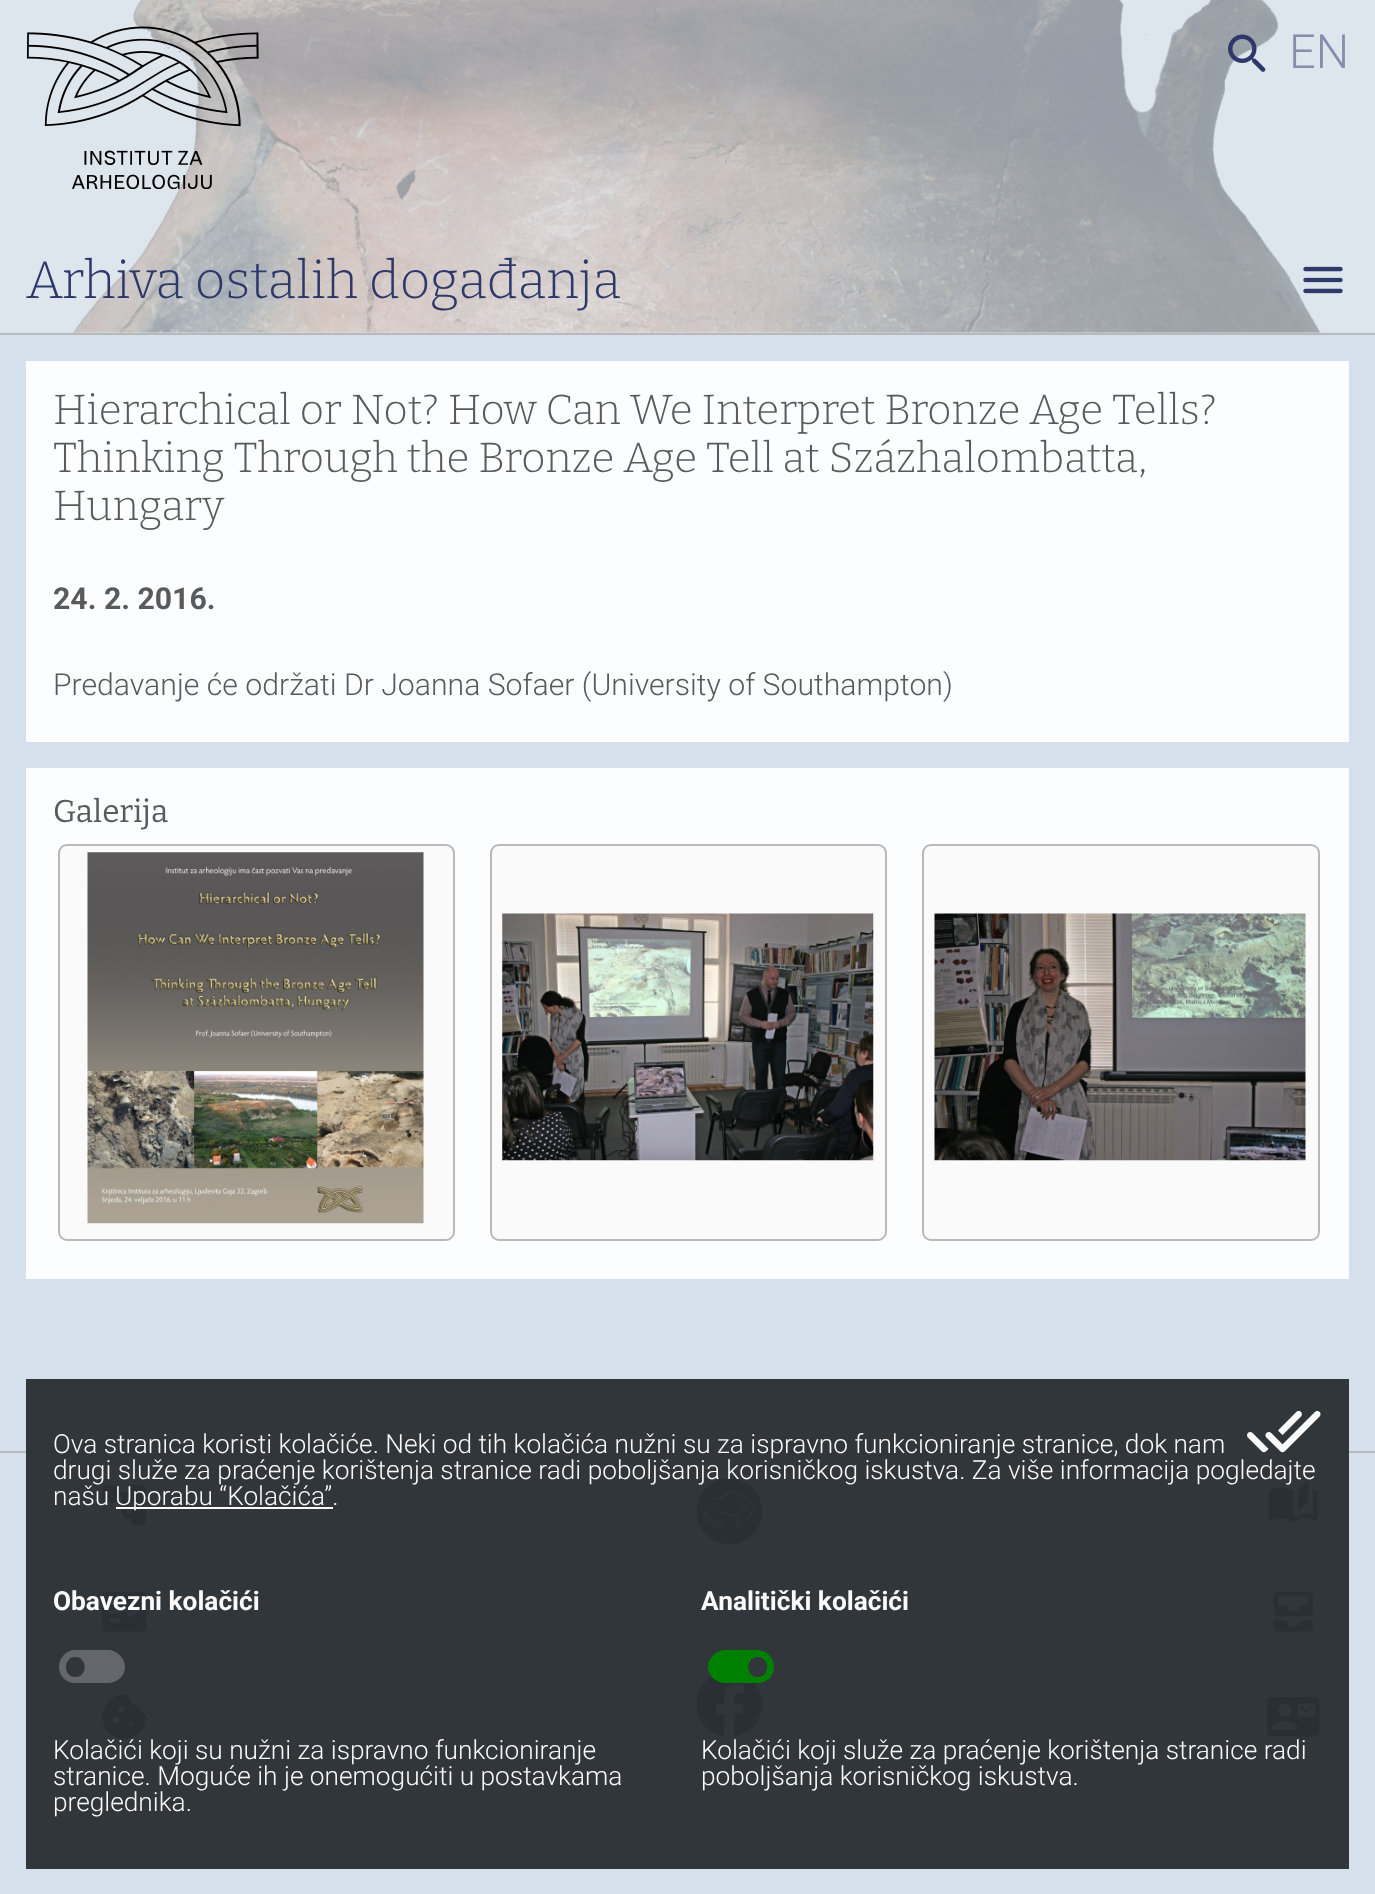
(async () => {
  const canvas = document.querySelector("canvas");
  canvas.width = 1375;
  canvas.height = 1894;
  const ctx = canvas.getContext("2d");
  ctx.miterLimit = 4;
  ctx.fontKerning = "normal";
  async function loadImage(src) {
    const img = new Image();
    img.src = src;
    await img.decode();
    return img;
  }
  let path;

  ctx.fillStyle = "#d4e0ec";
  ctx.fillRect(0, 0, 1375, 1894);
  ctx.fillStyle = "#31363b";
  ctx.fillRect(26, 1379, 1323, 490);
  ctx.drawImage(await loadImage("img/1.png"), 0, 0, 1375, 333);
  ctx.drawImage(await loadImage("img/2.png"), 26, 26, 233, 163);
  ctx.drawImage(await loadImage("img/3.png"), 1228, 34, 38, 38);
  ctx.drawImage(await loadImage("img/4.png"), 1303, 266, 40, 28);
  for (const [x, y, w, h, color] of [
    [0, 333, 1375, 2, "#b9b9b9"],
    [0, 1451, 1375, 2, "#b9b9b9"],
    [26, 1451, 1323, 2, "#2f3439"],
    [26, 361, 1323, 381, "#fbfdff"],
    [26, 768, 1323, 511, "#fbfdff"],
  ]) {
    ctx.fillStyle = color;
    ctx.fillRect(x, y, w, h);
  }
  ctx.fillStyle = "#fafafa";
  ctx.beginPath();
  ctx.roundRect(59, 845, 395, 395, 8);
  ctx.fill();
  ctx.strokeStyle = "#b9b9b9";
  ctx.lineWidth = 2;
  ctx.stroke();
  ctx.drawImage(await loadImage("img/5.png"), 87, 852, 337, 372);
  ctx.beginPath();
  ctx.roundRect(491, 845, 395, 395, 8);
  ctx.fill();
  ctx.stroke();
  ctx.drawImage(await loadImage("img/6.png"), 502, 913, 372, 248);
  ctx.beginPath();
  ctx.roundRect(923, 845, 396, 395, 8);
  ctx.fill();
  ctx.stroke();
  ctx.drawImage(await loadImage("img/7.png"), 934, 913, 372, 248);
  ctx.drawImage(await loadImage("img/8.png"), 1247, 1410, 74, 43);
  ctx.drawImage(await loadImage("img/9.png"), 102, 1485, 45, 40);
  ctx.fillRect(116, 1507, 217, 2);
  ctx.fillStyle = "rgba(250, 250, 250, 0.25)";
  path = new Path2D("M108 1650H75C66 1650 59 1658 59 1667C59 1676 66 1683 75 1683H108C117 1683 125 1676 125 1667C125 1658 117 1650 108 1650ZM75 1677C63 1677 63 1657 75 1657C88 1657 88 1677 75 1677Z");
  ctx.fill(path);
  ctx.drawImage(await loadImage("img/13.png"), 697, 1676, 66, 61);
  ctx.fillStyle = "#008000";
  path = new Path2D("M758 1650H725C716 1650 708 1658 708 1667C708 1676 716 1683 725 1683H758C767 1683 774 1676 774 1667C774 1658 767 1650 758 1650ZM758 1677C745 1677 745 1657 758 1657C770 1657 770 1677 758 1677Z");
  ctx.fill(path);
  ctx.drawImage(await loadImage("img/10.png"), 102, 1592, 45, 40);
  ctx.drawImage(await loadImage("img/11.png"), 102, 1694, 45, 45);
  ctx.drawImage(await loadImage("img/12.png"), 697, 1479, 66, 66);
  ctx.drawImage(await loadImage("img/14.png"), 1269, 1481, 49, 42);
  ctx.drawImage(await loadImage("img/15.png"), 1273, 1592, 40, 40);
  ctx.drawImage(await loadImage("img/16.png"), 1267, 1697, 53, 40);
  ctx.font = "300 47px Roboto";
  ctx.fillStyle = "#858fac";
  ctx.fillText("EN", 1289, 68);
  ctx.font = "300 52.5px Bitter";
  ctx.fillStyle = "#2e386a";
  ctx.fillText("Arhiva ostalih događanja", 26, 298);
  ctx.font = "300 42px Bitter";
  ctx.fillStyle = "#5a5a5a";
  for (const [text, x, y] of [
    ["Hierarchical or Not? How Can We Interpret Bronze Age Tells?", 53, 424],
    ["Thinking Through the Bronze Age Tell at Százhalombatta,", 53, 472],
    ["Hungary", 53, 520],
  ]) {
    ctx.fillText(text, x, y);
  }
  ctx.font = "bold 30.2px Roboto";
  ctx.fillText("24. 2. 2016.", 53, 609);
  ctx.font = "300 30.2px Roboto";
  ctx.fillText("Predavanje će održati Dr Joanna Sofaer (University of Southampton)", 53, 695);
  ctx.font = "31.5px Bitter";
  ctx.fillText("Galerija", 53, 822);
  ctx.font = "300 26.25px Roboto";
  ctx.fillStyle = "#fafafa";
  for (const [text, x, y] of [
    ["Ova stranica koristi kolačiće. Neki od tih kolačića nužni su za ispravno funkcioniranje stranice, dok nam", 53, 1453],
    ["drugi služe za praćenje korištenja stranice radi poboljšanja korisničkog iskustva. Za više informacija pogledajte", 53, 1479],
    ["našu", 53, 1505],
    ["Uporabu “Kolačića”.", 115, 1505],
  ]) {
    ctx.fillText(text, x, y);
  }
  ctx.font = "bold 26.25px Roboto";
  ctx.fillText("Obavezni kolačići", 53, 1610);
  ctx.font = "300 26.25px Roboto";
  for (const [text, x, y] of [
    ["Kolačići koji su nužni za ispravno funkcioniranje", 53, 1759],
    ["stranice. Moguće ih je onemogućiti u postavkama", 53, 1785],
    ["preglednika.", 53, 1811],
  ]) {
    ctx.fillText(text, x, y);
  }
  ctx.font = "bold 26.25px Roboto";
  ctx.fillText("Analitički kolačići", 701, 1610);
  ctx.font = "300 26.25px Roboto";
  ctx.fillText("Kolačići koji služe za praćenje korištenja stranice radi", 701, 1759);
  ctx.fillText("poboljšanja korisničkog iskustva.", 701, 1785);
})();
